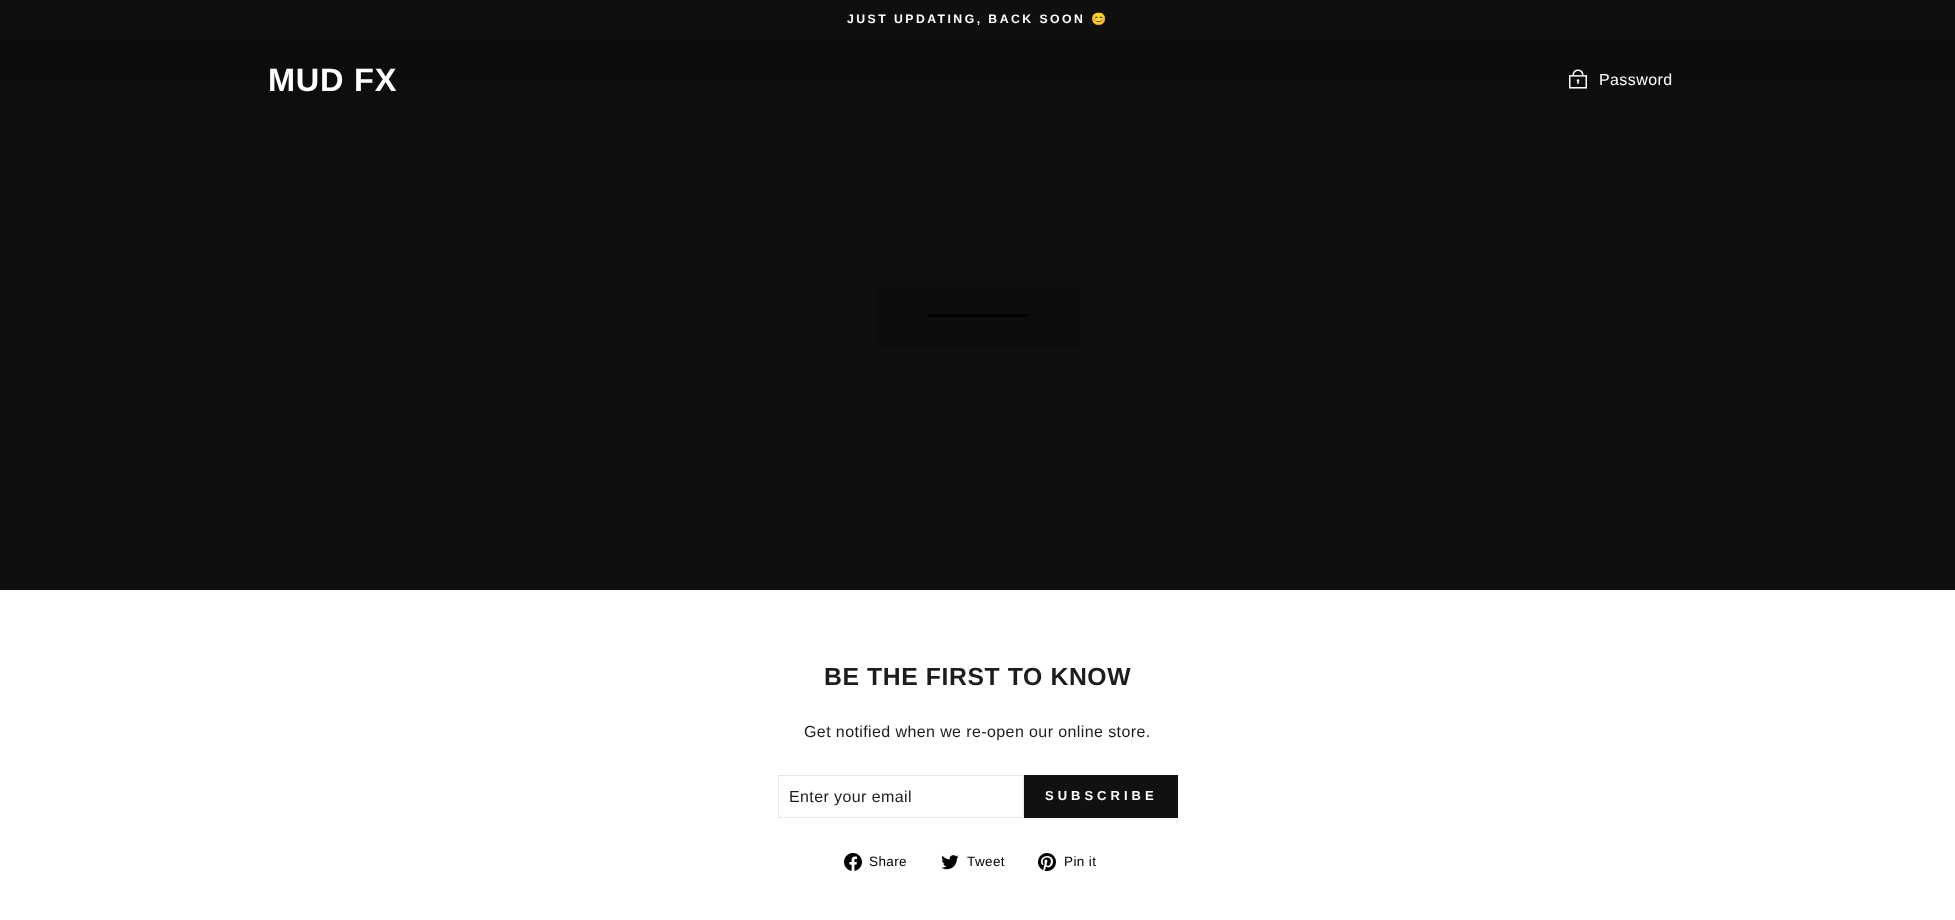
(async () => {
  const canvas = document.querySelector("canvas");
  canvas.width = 1955;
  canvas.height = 920;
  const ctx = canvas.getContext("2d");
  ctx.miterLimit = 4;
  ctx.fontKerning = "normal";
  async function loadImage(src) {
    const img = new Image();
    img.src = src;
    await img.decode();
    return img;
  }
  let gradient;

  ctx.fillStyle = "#ffffff";
  ctx.fillRect(0, 0, 1955, 920);
  ctx.fillStyle = "#0f0f0f";
  ctx.fillRect(0, 0, 1955, 40);
  gradient = ctx.createLinearGradient(978, 40, 978, 120);
  gradient.addColorStop(0, "#0b0b0b");
  gradient.addColorStop(1, "#0f0f0f");
  ctx.fillStyle = gradient;
  ctx.fillRect(0, 40, 1955, 80);
  ctx.drawImage(await loadImage("img/1.png"), 1569, 69, 18, 20);
  ctx.fillStyle = "#0f0f0f";
  ctx.fillRect(0, 120, 1955, 470);
  ctx.fillStyle = "#000000";
  ctx.fillRect(928, 314, 100, 3);
  gradient = ctx.createRadialGradient(978, 1083.66, 0, 978, 1083.66, 629);
  gradient.addColorStop(0, "rgba(0, 0, 0, 0.24)");
  gradient.addColorStop(0.6, "rgba(0, 0, 0, 0)");
  ctx.fillStyle = gradient;
  ctx.beginPath();
  ctx.rect(875, 287, 206, 60);
  ctx.save();
  ctx.clip();
  ctx.scale(1, 184 / 629);
  ctx.fillRect(0, 0, 1955, 3145);
  ctx.restore();
  ctx.strokeStyle = "#e8e8e1";
  ctx.strokeRect(778.5, 775.5, 245, 42);
  ctx.fillStyle = "#111111";
  ctx.fillRect(1024, 775, 154, 43);
  ctx.drawImage(await loadImage("img/2.png"), 844, 853, 18, 18);
  ctx.drawImage(await loadImage("img/3.png"), 941, 855, 18, 15);
  ctx.drawImage(await loadImage("img/4.png"), 1038, 853, 18, 18);
  ctx.letterSpacing = "2.45px";
  ctx.font = "bold 12.25px Arimo";
  ctx.fillStyle = "#ffffff";
  ctx.fillText("JUST UPDATING, BACK SOON", 847, 23);
  ctx.font = "bold 12.25px Noto Color Emoji";
  ctx.fillText("😊", 1091, 23);
  ctx.letterSpacing = "0.75px";
  ctx.font = "bold 32.5px Arimo";
  ctx.fillText("MUD FX", 268, 91);
  ctx.letterSpacing = "0.4px";
  ctx.font = "16px Arimo";
  ctx.fillText("Password", 1599, 85);
  ctx.letterSpacing = "0.6px";
  ctx.font = "bold 24.75px Arimo";
  ctx.fillStyle = "#1c1d1d";
  ctx.fillText("BE THE FIRST TO KNOW", 824, 685);
  ctx.letterSpacing = "0.4px";
  ctx.font = "16px Arimo";
  ctx.fillText("Get notified when we re-open our online store.", 804, 737);
  ctx.fillText("Enter your email", 789, 802);
  ctx.letterSpacing = "4px";
  ctx.font = "bold 13px Arimo";
  ctx.fillStyle = "#ffffff";
  ctx.fillText("SUBSCRIBE", 1045, 800);
  ctx.letterSpacing = "0.4px";
  ctx.font = "13.5px Arimo";
  ctx.fillStyle = "#000000";
  for (const [text, x, y] of [
    ["Share", 869, 866],
    ["Tweet", 967, 866],
    ["Pin it", 1064, 866],
  ]) {
    ctx.fillText(text, x, y);
  }
})();
